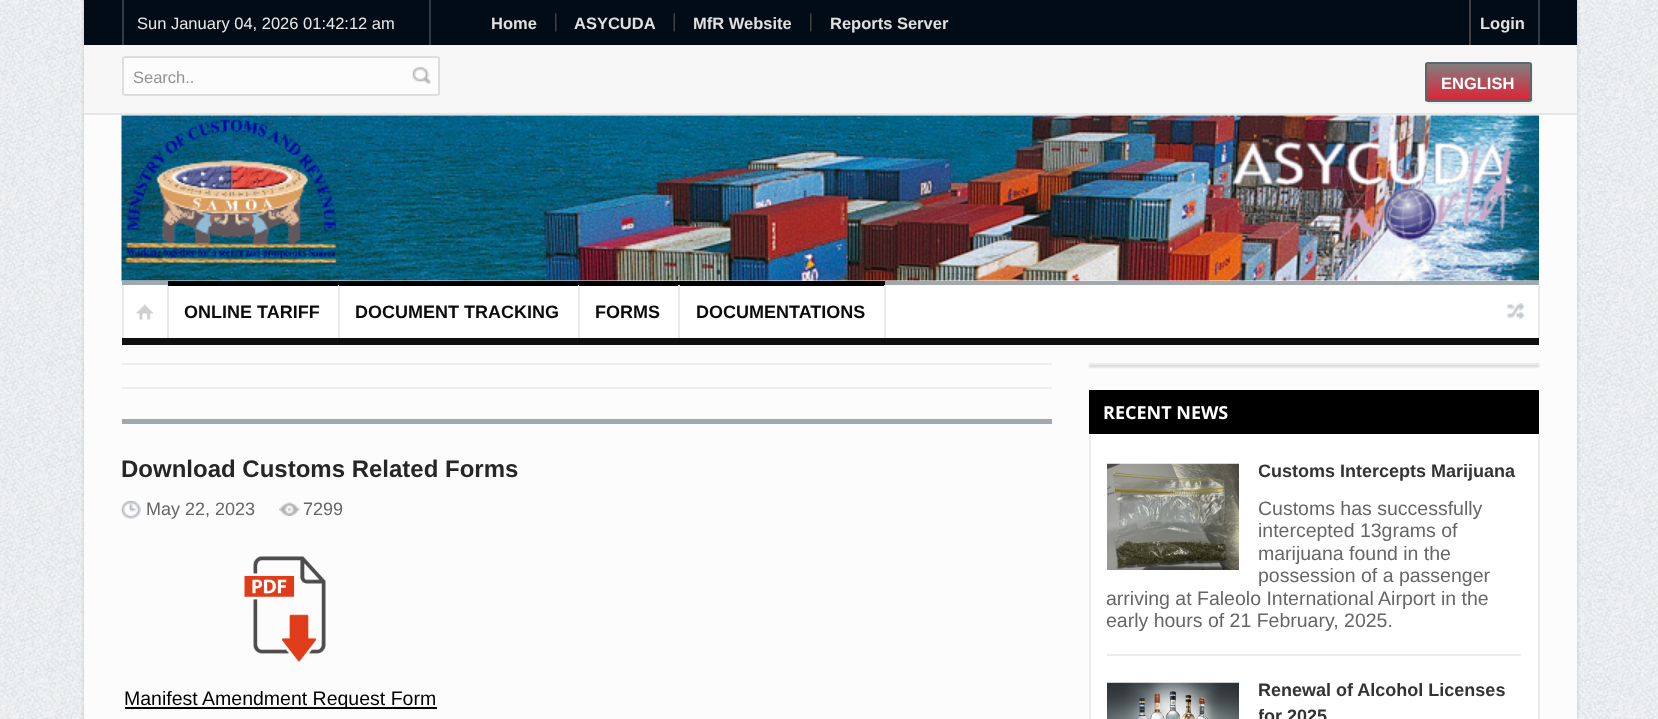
(async () => {
  const canvas = document.querySelector("canvas");
  canvas.width = 1658;
  canvas.height = 719;
  const ctx = canvas.getContext("2d");
  ctx.miterLimit = 4;
  ctx.fontKerning = "normal";
  async function loadImage(src) {
    const img = new Image();
    img.src = src;
    await img.decode();
    return img;
  }
  let gradient, path;

  ctx.fillStyle = "#ffffff";
  ctx.fillRect(0, 0, 1658, 719);
  ctx.drawImage(await loadImage("img/1.png"), 0, 0, 1658, 719);
  ctx.fillStyle = "rgba(0, 0, 0, 0.1)";
  ctx.filter = "blur(1.5px)";
  ctx.beginPath();
  ctx.rect(83, -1, 1495, 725);
  ctx.fill();
  ctx.filter = "none";
  for (const [x, y, w, h, color] of [
    [84, 116, 1493, 603, "#fcfcfc"],
    [84, 0, 1493, 45, "#010c16"],
    [1538, 0, 2, 45, "#323b44"],
    [122, 0, 2, 45, "#323b44"],
    [429, 0, 2, 45, "#323b44"],
  ]) {
    ctx.fillStyle = color;
    ctx.fillRect(x, y, w, h);
  }
  ctx.drawImage(await loadImage("img/2.png"), 555, 13, 2, 19);
  ctx.drawImage(await loadImage("img/3.png"), 673, 13, 2, 19);
  ctx.drawImage(await loadImage("img/2.png"), 810, 13, 2, 19);
  for (const [x, y, w, h, color] of [
    [1469, 0, 2, 45, "#404040"],
    [84, 45, 1493, 68, "#f7f7f7"],
    [84, 115, 1493, 1, "#ffffff"],
    [84, 113, 1493, 2, "#e6e6e6"],
  ]) {
    ctx.fillStyle = color;
    ctx.fillRect(x, y, w, h);
  }
  ctx.fillStyle = "#fcfcfc";
  ctx.beginPath();
  ctx.roundRect(123, 57, 316, 38, 2);
  ctx.fill();
  ctx.strokeStyle = "#dedede";
  ctx.lineWidth = 2;
  ctx.stroke();
  ctx.drawImage(await loadImage("img/4.png"), 412, 66, 19, 18);
  ctx.fillStyle = "#ebebeb";
  path = new Path2D("M1427 102C1428 103 1429 104 1430 104H1530C1532 104 1533 103 1533 101V66C1533 65 1532 64 1531 63L1532 88C1532 106 1534 102 1512 102Z");
  ctx.fill(path);
  ctx.save();
  ctx.beginPath();
  ctx.roundRect(1425, 62, 107, 40, 3);
  ctx.clip();
  gradient = ctx.createLinearGradient(1478, 63, 1478, 101);
  gradient.addColorStop(0, "#808080");
  gradient.addColorStop(1, "#de2234");
  ctx.fillStyle = gradient;
  ctx.fillRect(1425, 63, 107, 38);
  ctx.restore();
  ctx.beginPath();
  ctx.roundRect(1426, 63, 105, 38, 2);
  ctx.strokeStyle = "#5e656b";
  ctx.stroke();
  ctx.drawImage(await loadImage("img/5.png"), 121, 115, 1418, 166);
  ctx.drawImage(await loadImage("img/6.png"), 125, 119, 212, 144);
  ctx.drawImage(await loadImage("img/7.png"), 1231, 141, 282, 100);
  for (const [x, y, w, h, color] of [
    [122, 281, 1417, 4, "#a2a9ae"],
    [122, 338, 1417, 7, "#101010"],
    [124, 285, 1414, 53, "#ffffff"],
    [1538, 285, 2, 53, "#e9e9e9"],
  ]) {
    ctx.fillStyle = color;
    ctx.fillRect(x, y, w, h);
  }
  ctx.drawImage(await loadImage("img/8.png"), 136, 304, 17, 16);
  for (const [x, y, w, h, color] of [
    [167, 285, 2, 53, "#e9e9e9"],
    [122, 285, 2, 53, "#e9e9e9"],
    [168, 281, 171, 5, "#000000"],
    [338, 285, 2, 53, "#e9e9e9"],
    [339, 281, 240, 5, "#000000"],
    [578, 285, 2, 53, "#e9e9e9"],
    [579, 281, 306, 5, "#000000"],
    [678, 285, 2, 53, "#e9e9e9"],
    [884, 285, 2, 53, "#e9e9e9"],
  ]) {
    ctx.fillStyle = color;
    ctx.fillRect(x, y, w, h);
  }
  ctx.drawImage(await loadImage("img/9.png"), 1507, 303, 17, 17);
  for (const [x, y, w, h, color] of [
    [122, 363, 930, 2, "#ededed"],
    [122, 387, 930, 2, "#ededed"],
    [122, 419, 930, 5, "#a2a9ae"],
  ]) {
    ctx.fillStyle = color;
    ctx.fillRect(x, y, w, h);
  }
  ctx.drawImage(await loadImage("img/10.png"), 121, 501, 20, 18);
  ctx.drawImage(await loadImage("img/11.png"), 279, 502, 21, 14);
  ctx.drawImage(await loadImage("img/12.png"), 244, 556, 82, 106);
  ctx.fillStyle = "#000000";
  ctx.fillRect(125, 707, 312, 2);
  ctx.fillStyle = "rgba(0, 0, 0, 0.2)";
  ctx.filter = "blur(1px)";
  ctx.beginPath();
  ctx.rect(1089, 365, 450, 2);
  ctx.fill();
  ctx.filter = "none";
  for (const [x, y, w, h, color] of [
    [1089, 363, 450, 2, "#ebebeb"],
    [1089, 390, 450, 44, "#000000"],
    [1091, 434, 447, 285, "#ffffff"],
    [1538, 434, 2, 285, "#ebebeb"],
    [1089, 434, 2, 285, "#ebebeb"],
  ]) {
    ctx.fillStyle = color;
    ctx.fillRect(x, y, w, h);
  }
  ctx.drawImage(await loadImage("img/13.png"), 1107, 463, 132, 107);
  ctx.fillRect(1107, 654, 414, 2);
  ctx.drawImage(await loadImage("img/14.png"), 1107, 682, 132, 37);
  ctx.font = "16.5px Liberation Sans";
  ctx.fillStyle = "#e9e9e9";
  ctx.fillText("Sun January 04, 2026 01:42:12 am", 137, 29);
  ctx.font = "bold 16.5px Liberation Sans";
  ctx.fillStyle = "#e0e0e0";
  for (const [text, x, y] of [
    ["Home", 491, 29],
    ["ASYCUDA", 574, 29],
    ["MfR Website", 693, 29],
    ["Reports Server", 830, 29],
    ["Login", 1480, 29],
  ]) {
    ctx.fillText(text, x, y);
  }
  ctx.font = "16.5px Liberation Sans";
  ctx.fillStyle = "#939393";
  ctx.fillText("Search..", 133, 83);
  ctx.font = "bold 16.5px Liberation Sans";
  ctx.fillStyle = "#ffffff";
  ctx.fillText("ENGLISH", 1441, 89);
  ctx.font = "bold 18px Liberation Sans";
  ctx.fillStyle = "#0b0b0b";
  for (const [text, x, y] of [
    ["ONLINE TARIFF", 184, 318],
    ["DOCUMENT TRACKING", 355, 318],
    ["FORMS", 595, 318],
    ["DOCUMENTATIONS", 696, 318],
  ]) {
    ctx.fillText(text, x, y);
  }
  ctx.font = "bold 24px Liberation Sans";
  ctx.fillStyle = "#262626";
  ctx.fillText("Download Customs Related Forms", 121, 477);
  ctx.font = "18px Liberation Sans";
  ctx.fillStyle = "#666666";
  ctx.fillText("May 22, 2023", 146, 515);
  ctx.fillText("7299", 303, 515);
  ctx.font = "19.5px Liberation Sans";
  ctx.fillStyle = "#000000";
  ctx.fillText("Manifest Amendment Request Form", 124, 705);
  ctx.font = "bold 18px Open Sans";
  ctx.fillStyle = "#ffffff";
  ctx.fillText("RECENT NEWS", 1103, 419);
  ctx.save();
  ctx.beginPath();
  ctx.rect(1259, 459, 262, 38);
  ctx.clip();
  ctx.font = "bold 18px Liberation Sans";
  ctx.fillStyle = "#333333";
  ctx.fillText("Customs Intercepts Marijuana", 1258, 477);
  ctx.restore();
  ctx.font = "19.5px Liberation Sans";
  ctx.fillStyle = "#666666";
  for (const [text, x, y] of [
    ["Customs has successfully", 1258, 515],
    ["intercepted 13grams of", 1258, 537],
    ["marijuana found in the", 1258, 560],
    ["possession of a passenger", 1258, 582],
    ["arriving at Faleolo International Airport in the", 1106, 605],
    ["early hours of 21 February, 2025.", 1106, 627],
  ]) {
    ctx.fillText(text, x, y);
  }
  ctx.font = "bold 18px Liberation Sans";
  ctx.fillStyle = "#333333";
  ctx.fillText("Renewal of Alcohol Licenses", 1258, 696);
  ctx.save();
  ctx.beginPath();
  ctx.rect(1259, 678, 262, 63);
  ctx.clip();
  ctx.fillText("for 2025", 1258, 722);
  ctx.restore();
})();
